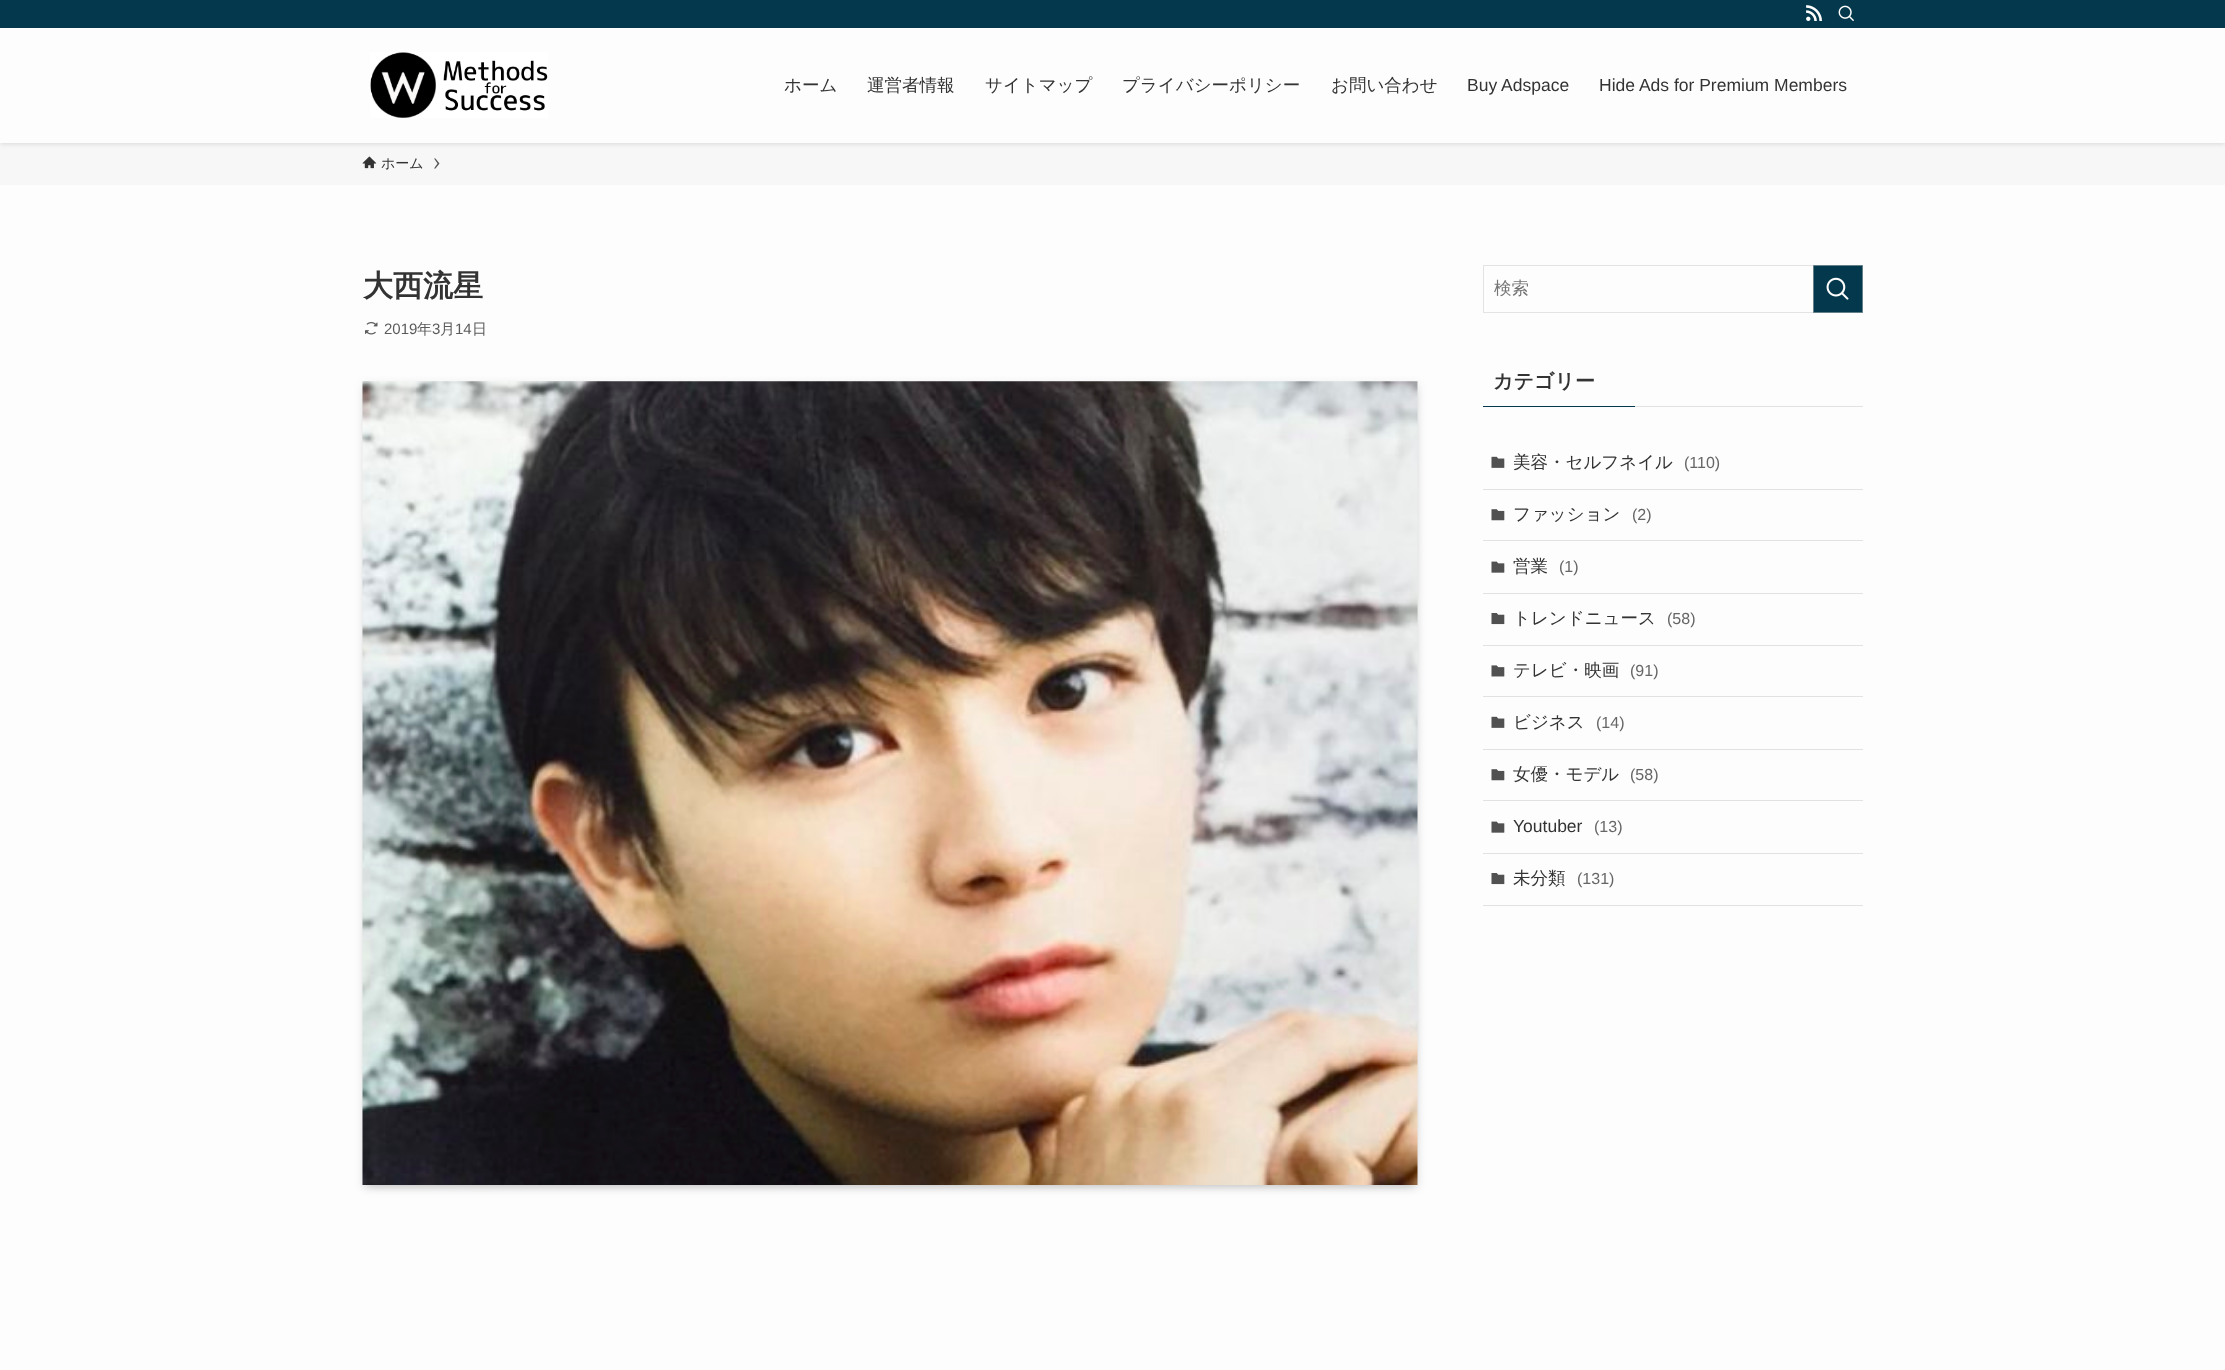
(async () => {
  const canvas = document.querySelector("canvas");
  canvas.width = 2225;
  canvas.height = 1370;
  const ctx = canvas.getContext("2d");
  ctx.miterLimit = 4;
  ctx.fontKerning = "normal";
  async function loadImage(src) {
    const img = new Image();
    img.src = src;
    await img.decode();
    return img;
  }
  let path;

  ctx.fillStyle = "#fdfdfd";
  ctx.fillRect(0, 0, 2225, 1370);
  ctx.fillStyle = "#f7f7f7";
  ctx.fillRect(0, 143, 2225, 42);
  ctx.fillStyle = "rgba(0, 0, 0, 0.12)";
  ctx.filter = "blur(2.5px)";
  ctx.beginPath();
  ctx.rect(0, 1, 2225, 143);
  ctx.fill();
  ctx.filter = "none";
  ctx.fillStyle = "#fdfdfd";
  ctx.fillRect(0, 28, 2225, 115);
  ctx.fillStyle = "#04384c";
  ctx.fillRect(0, 0, 2225, 28);
  ctx.drawImage(await loadImage("img/1.png"), 1806, 5, 16, 16);
  ctx.drawImage(await loadImage("img/2.png"), 1838, 5, 16, 16);
  ctx.drawImage(await loadImage("img/3.png"), 370, 52, 178, 66);
  ctx.drawImage(await loadImage("img/4.png"), 362, 156, 15, 13);
  ctx.fillStyle = "#5a5a5a";
  path = new Path2D("M435.5 158.5H434L437.5 163.5L434 168.5H435.5L439.5 163.5Z");
  ctx.fill(path);
  ctx.drawImage(await loadImage("img/5.png"), 365, 322, 13, 13);
  ctx.fillStyle = "rgba(0, 0, 0, 0.2)";
  ctx.filter = "blur(5px)";
  ctx.beginPath();
  ctx.rect(368, 391, 1045, 794);
  ctx.fill();
  ctx.filter = "none";
  ctx.fillStyle = "rgba(0, 0, 0, 0.1)";
  ctx.filter = "blur(5px)";
  ctx.beginPath();
  ctx.rect(363, 384, 1055, 804);
  ctx.fill();
  ctx.filter = "none";
  ctx.drawImage(await loadImage("img/6.png"), 362, 381, 1056, 804);
  ctx.strokeStyle = "#e3e3e3";
  ctx.strokeRect(1483.5, 265.5, 379, 47);
  ctx.fillStyle = "#04384c";
  ctx.beginPath();
  ctx.rect(1813.5, 265.5, 49, 47);
  ctx.fill();
  ctx.strokeStyle = "#66808a";
  ctx.stroke();
  ctx.drawImage(await loadImage("img/7.png"), 1826, 277, 23, 23);
  for (const [x, y, w, h, color] of [
    [1483, 406, 152, 1, "#04384c"],
    [1635, 406, 228, 1, "#e2e2e2"],
    [1483, 489, 380, 1, "#e2e2e2"],
  ]) {
    ctx.fillStyle = color;
    ctx.fillRect(x, y, w, h);
  }
  ctx.drawImage(await loadImage("img/8.png"), 1491, 456, 14, 12);
  ctx.fillRect(1483, 540, 380, 1);
  ctx.drawImage(await loadImage("img/9.png"), 1491, 509, 14, 12);
  ctx.fillRect(1483, 593, 380, 1);
  ctx.drawImage(await loadImage("img/10.png"), 1491, 561, 14, 12);
  ctx.fillRect(1483, 645, 380, 1);
  ctx.drawImage(await loadImage("img/11.png"), 1491, 613, 14, 12);
  ctx.fillRect(1483, 696, 380, 1);
  ctx.drawImage(await loadImage("img/12.png"), 1491, 665, 14, 12);
  ctx.fillRect(1483, 749, 380, 1);
  ctx.drawImage(await loadImage("img/13.png"), 1491, 716, 14, 12);
  ctx.fillRect(1483, 800, 380, 1);
  ctx.drawImage(await loadImage("img/14.png"), 1491, 769, 14, 12);
  ctx.fillRect(1483, 853, 380, 1);
  ctx.drawImage(await loadImage("img/15.png"), 1491, 821, 14, 12);
  ctx.fillRect(1483, 905, 380, 1);
  ctx.drawImage(await loadImage("img/16.png"), 1491, 873, 14, 12);
  ctx.font = "500 17.5px WenQuanYi Zen Hei";
  ctx.fillStyle = "#333333";
  for (const [text, x, y] of [
    ["ホーム", 784, 91],
    ["運営者情報", 867, 91],
    ["サイトマップ", 985, 91],
    ["プライバシーポリシー", 1122, 91],
    ["お問い合わせ", 1331, 91],
  ]) {
    ctx.fillText(text, x, y);
  }
  ctx.font = "17.5px Liberation Sans";
  ctx.fillText("Buy Adspace", 1467, 91);
  ctx.fillText("Hide Ads for Premium Members", 1599, 91);
  ctx.font = "500 14px WenQuanYi Zen Hei";
  ctx.fillText("ホーム", 381, 168);
  ctx.font = "bold 30px WenQuanYi Zen Hei";
  ctx.fillText("大西流星", 363, 296);
  ctx.font = "15px Liberation Sans";
  ctx.fillStyle = "#5b5b5b";
  ctx.fillText("2019", 384, 334);
  ctx.font = "500 15px WenQuanYi Zen Hei";
  ctx.fillText("年", 417, 334);
  ctx.font = "15px Liberation Sans";
  ctx.fillText("3", 432, 334);
  ctx.font = "500 15px WenQuanYi Zen Hei";
  ctx.fillText("月", 440, 334);
  ctx.font = "15px Liberation Sans";
  ctx.fillText("14", 455, 334);
  ctx.font = "500 15px WenQuanYi Zen Hei";
  ctx.fillText("日", 472, 334);
  ctx.font = "500 17.5px WenQuanYi Zen Hei";
  ctx.fillStyle = "#757575";
  ctx.fillText("検索", 1494, 294);
  ctx.font = "bold 20px WenQuanYi Zen Hei";
  ctx.fillStyle = "#333333";
  ctx.fillText("カテゴリー", 1493, 388);
  ctx.font = "500 17.5px WenQuanYi Zen Hei";
  ctx.fillText("美容・セルフネイル", 1513, 468);
  ctx.font = "16px Liberation Sans";
  ctx.fillStyle = "#666666";
  ctx.fillText("(110)", 1684, 468);
  ctx.font = "500 17.5px WenQuanYi Zen Hei";
  ctx.fillStyle = "#333333";
  ctx.fillText("ファッション", 1513, 520);
  ctx.font = "16px Liberation Sans";
  ctx.fillStyle = "#666666";
  ctx.fillText("(2)", 1632, 520);
  ctx.font = "500 17.5px WenQuanYi Zen Hei";
  ctx.fillStyle = "#333333";
  ctx.fillText("営業", 1513, 572);
  ctx.font = "16px Liberation Sans";
  ctx.fillStyle = "#666666";
  ctx.fillText("(1)", 1559, 572);
  ctx.font = "500 17.5px WenQuanYi Zen Hei";
  ctx.fillStyle = "#333333";
  ctx.fillText("トレンドニュース", 1513, 624);
  ctx.font = "16px Liberation Sans";
  ctx.fillStyle = "#666666";
  ctx.fillText("(58)", 1667, 624);
  ctx.font = "500 17.5px WenQuanYi Zen Hei";
  ctx.fillStyle = "#333333";
  ctx.fillText("テレビ・映画", 1513, 676);
  ctx.font = "16px Liberation Sans";
  ctx.fillStyle = "#666666";
  ctx.fillText("(91)", 1630, 676);
  ctx.font = "500 17.5px WenQuanYi Zen Hei";
  ctx.fillStyle = "#333333";
  ctx.fillText("ビジネス", 1513, 728);
  ctx.font = "16px Liberation Sans";
  ctx.fillStyle = "#666666";
  ctx.fillText("(14)", 1596, 728);
  ctx.font = "500 17.5px WenQuanYi Zen Hei";
  ctx.fillStyle = "#333333";
  ctx.fillText("女優・モデル", 1513, 780);
  ctx.font = "16px Liberation Sans";
  ctx.fillStyle = "#666666";
  ctx.fillText("(58)", 1630, 780);
  ctx.font = "17.5px Liberation Sans";
  ctx.fillStyle = "#333333";
  ctx.fillText("Youtuber", 1513, 832);
  ctx.font = "16px Liberation Sans";
  ctx.fillStyle = "#666666";
  ctx.fillText("(13)", 1594, 832);
  ctx.font = "500 17.5px WenQuanYi Zen Hei";
  ctx.fillStyle = "#333333";
  ctx.fillText("未分類", 1513, 884);
  ctx.font = "16px Liberation Sans";
  ctx.fillStyle = "#666666";
  ctx.fillText("(131)", 1577, 884);
})();
